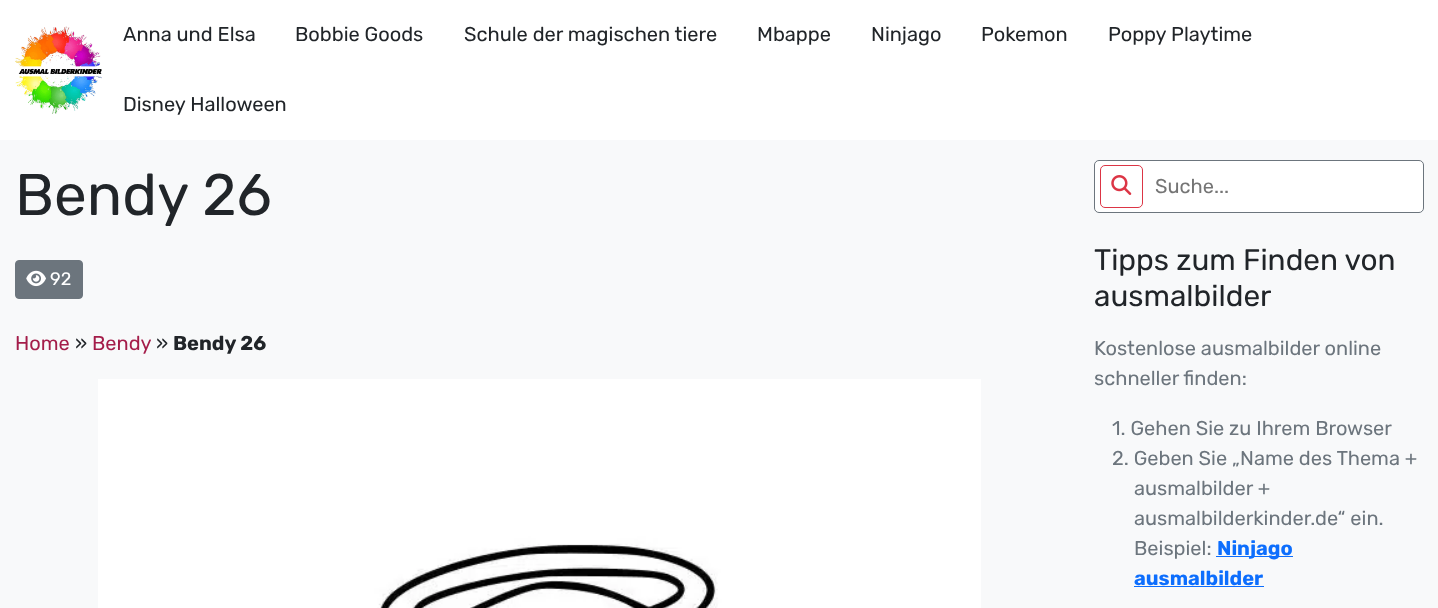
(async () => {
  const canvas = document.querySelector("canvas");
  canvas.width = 1438;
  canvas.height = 608;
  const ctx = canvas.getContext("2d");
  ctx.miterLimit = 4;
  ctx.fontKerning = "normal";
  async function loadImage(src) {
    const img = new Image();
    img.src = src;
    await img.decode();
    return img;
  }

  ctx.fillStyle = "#f8f9fa";
  ctx.fillRect(0, 0, 1438, 608);
  ctx.fillStyle = "#ffffff";
  ctx.fillRect(0, 0, 1438, 140);
  ctx.drawImage(await loadImage("img/1.png"), 15, 26, 87, 88);
  ctx.fillStyle = "#6c757d";
  ctx.beginPath();
  ctx.roundRect(15.5, 260.5, 67, 38, 3.5);
  ctx.fill();
  ctx.strokeStyle = "#6c757d";
  ctx.stroke();
  ctx.drawImage(await loadImage("img/2.png"), 26, 270, 20, 17);
  ctx.drawImage(await loadImage("img/3.png"), 98, 379, 883, 229);
  ctx.fillStyle = "#ffffff";
  ctx.beginPath();
  ctx.roundRect(1094.5, 160.5, 329, 52, 4.5);
  ctx.fill();
  ctx.stroke();
  ctx.beginPath();
  ctx.roundRect(1100.5, 165.5, 42, 42, 4.5);
  ctx.strokeStyle = "#dc3545";
  ctx.stroke();
  ctx.drawImage(await loadImage("img/4.png"), 1111, 175, 21, 20);
  ctx.fillStyle = "#0d6efd";
  ctx.fillRect(1216, 556, 77, 1);
  ctx.fillRect(1134, 586, 130, 1);
  ctx.font = "20px Rubik";
  ctx.fillStyle = "#212529";
  for (const [text, x, y] of [
    ["Anna und Elsa", 123, 41],
    ["Bobbie Goods", 295, 41],
    ["Schule der magischen tiere", 464, 41],
    ["Mbappe", 757, 41],
    ["Ninjago", 871, 41],
    ["Pokemon", 981, 41],
    ["Poppy Playtime", 1108, 41],
    ["Disney Halloween", 123, 111],
  ]) {
    ctx.fillText(text, x, y);
  }
  ctx.font = "58.5px Rubik";
  ctx.fillText("Bendy 26", 15, 215);
  ctx.font = "18px Rubik";
  ctx.fillStyle = "#ffffff";
  ctx.fillText("92", 50, 285);
  ctx.font = "20px Rubik";
  ctx.fillStyle = "#a41d4a";
  ctx.fillText("Home", 15, 350);
  ctx.fillStyle = "#212529";
  ctx.fillText("»", 75, 350);
  ctx.fillStyle = "#a41d4a";
  ctx.fillText("Bendy", 92, 350);
  ctx.fillStyle = "#212529";
  ctx.fillText("»", 156, 350);
  ctx.font = "bold 20px Rubik";
  ctx.fillText("Bendy 26", 173, 350);
  ctx.font = "20px Rubik";
  ctx.fillStyle = "#757575";
  ctx.fillText("Suche...", 1155, 193);
  ctx.font = "29.75px Rubik";
  ctx.fillStyle = "#212529";
  ctx.fillText("Tipps zum Finden von", 1094, 270);
  ctx.fillText("ausmalbilder", 1094, 306);
  ctx.font = "20px Rubik";
  ctx.fillStyle = "#6c757d";
  for (const [text, x, y] of [
    ["Kostenlose ausmalbilder online", 1094, 355],
    ["schneller finden:", 1094, 385],
    ["1. Gehen Sie zu Ihrem Browser", 1112, 435],
    ["2. Geben Sie „Name des Thema +", 1112, 465],
    ["ausmalbilder +", 1134, 495],
    ["ausmalbilderkinder.de“ ein.", 1134, 525],
    ["Beispiel:", 1134, 555],
  ]) {
    ctx.fillText(text, x, y);
  }
  ctx.font = "bold 20px Rubik";
  ctx.fillStyle = "#0d6efd";
  ctx.fillText("Ninjago", 1217, 555);
  ctx.fillText("ausmalbilder", 1134, 585);
})();
